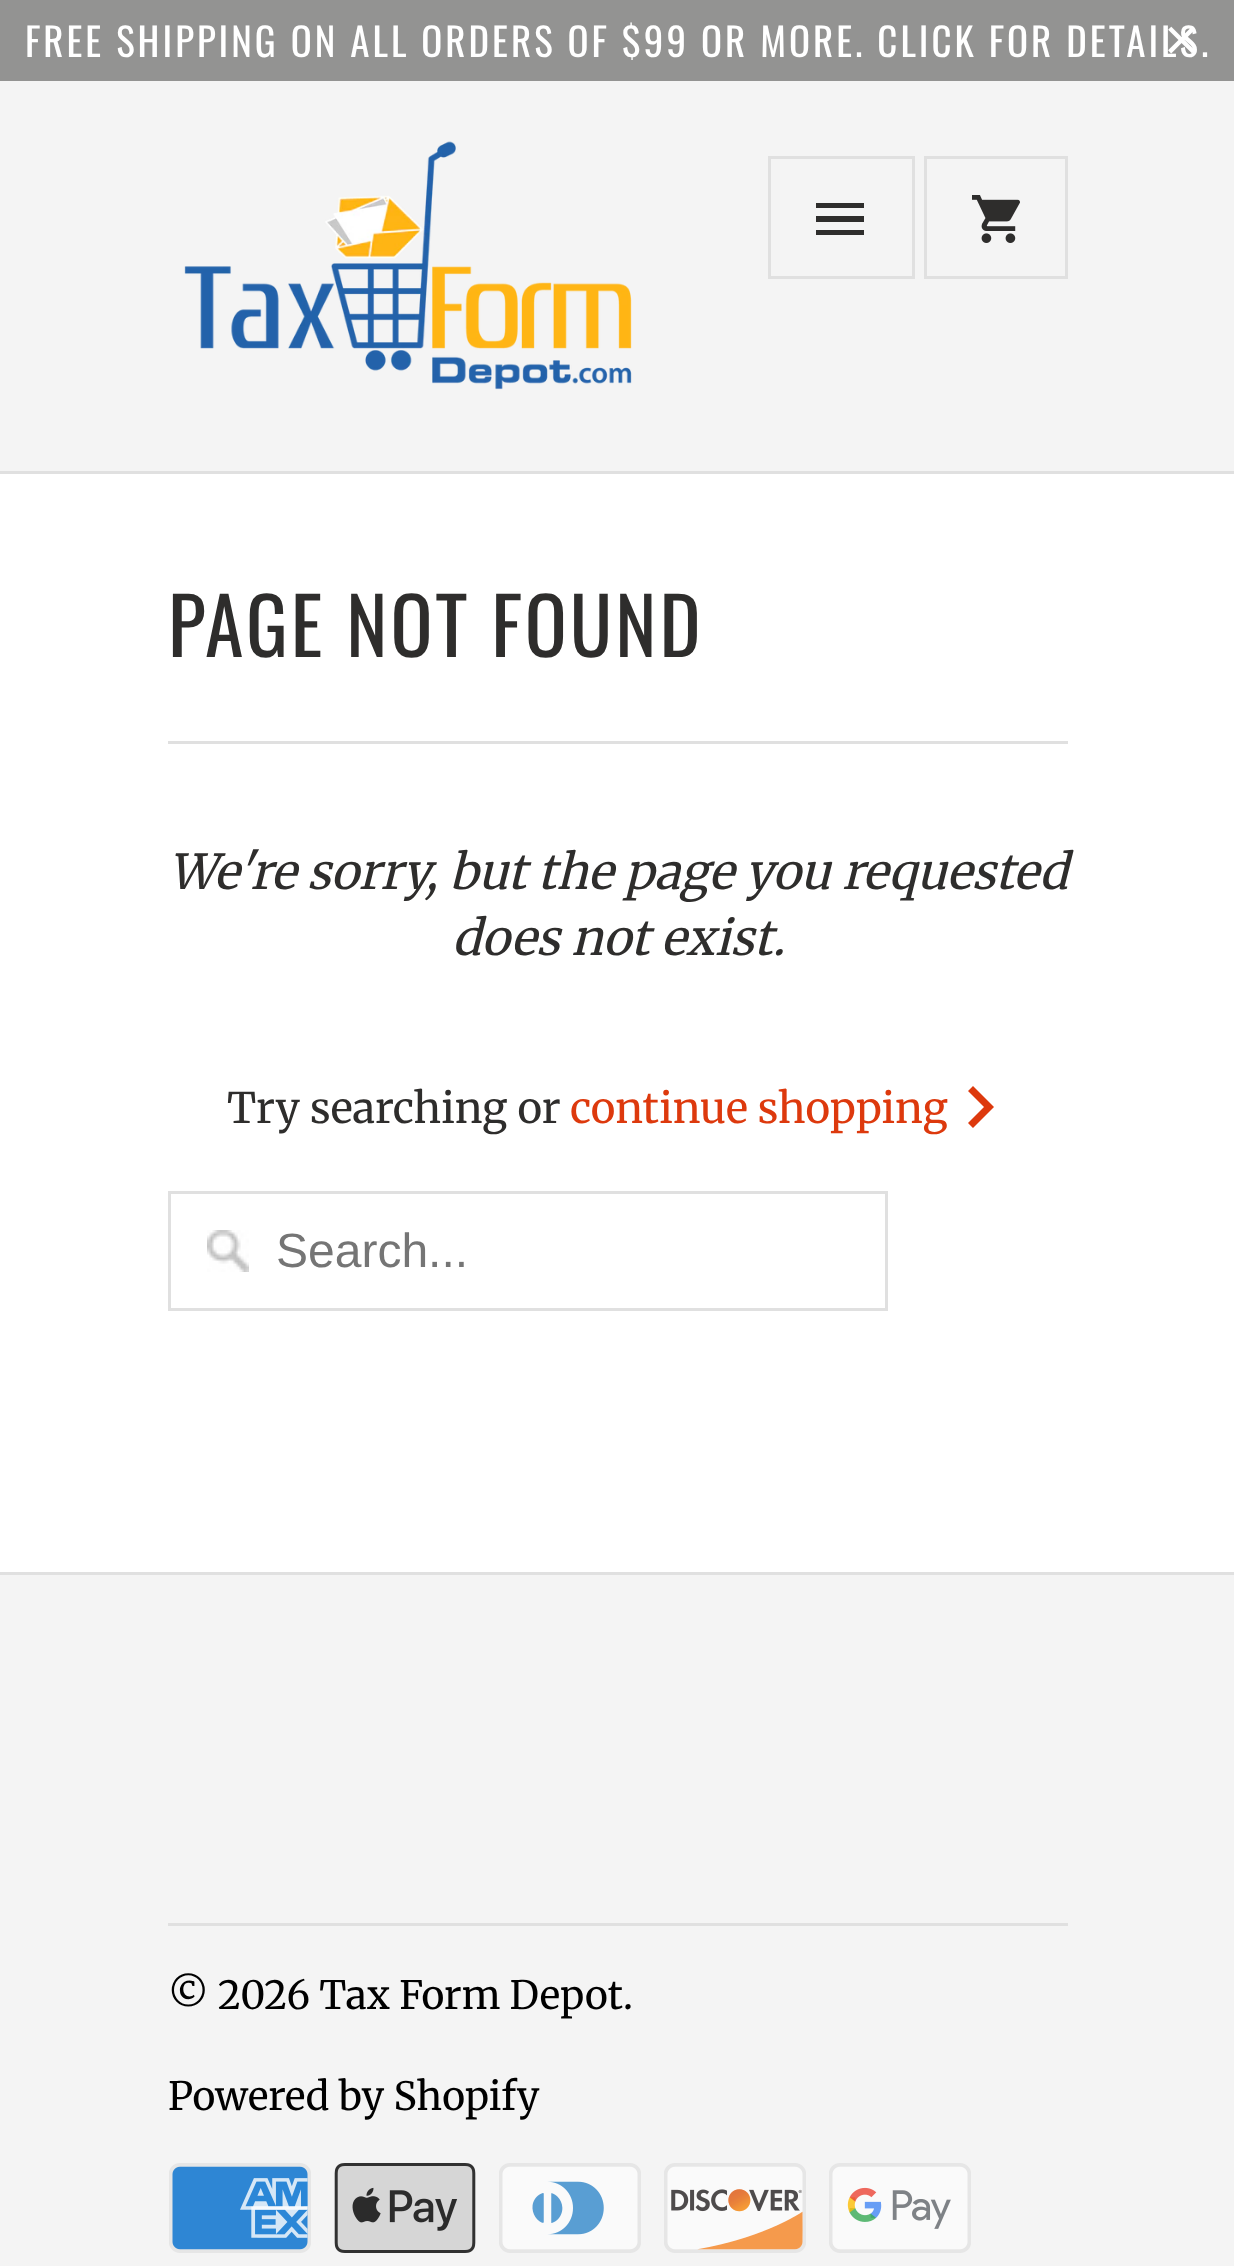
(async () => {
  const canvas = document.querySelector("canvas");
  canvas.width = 1234;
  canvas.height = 2266;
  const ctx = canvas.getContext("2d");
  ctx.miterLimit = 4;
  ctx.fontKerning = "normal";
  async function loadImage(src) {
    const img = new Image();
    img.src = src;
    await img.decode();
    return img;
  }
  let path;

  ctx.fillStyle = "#ffffff";
  ctx.fillRect(0, 0, 1234, 2266);
  for (const [x, y, w, h, color] of [
    [0, 0, 1234, 81, "#939392"],
    [0, 81, 1234, 390, "#f4f4f4"],
    [0, 471, 1234, 3, "#e0e0e0"],
  ]) {
    ctx.fillStyle = color;
    ctx.fillRect(x, y, w, h);
  }
  ctx.drawImage(await loadImage("img/1.png"), 184, 141, 448, 249);
  ctx.strokeStyle = "#e0e0e0";
  ctx.lineWidth = 3;
  ctx.strokeRect(769.5, 157.5, 144, 120);
  ctx.fillStyle = "#2e2d2c";
  path = new Path2D("M816 235H864V230H816ZM816 222H864V216H816ZM816 203V208H864V203Z");
  ctx.fill(path);
  ctx.strokeRect(925.5, 157.5, 141, 120);
  ctx.drawImage(await loadImage("img/2.png"), 972, 195, 48, 48);
  ctx.fillStyle = "#e0e0e0";
  ctx.fillRect(168, 741, 900, 3);
  ctx.fillStyle = "#dd390d";
  path = new Path2D("M973 1086L968 1091L984 1107L968 1123L973 1128L994 1107Z");
  ctx.fill(path);
  ctx.drawImage(await loadImage("img/3.png"), 207, 1230, 42, 42);
  ctx.strokeRect(169.5, 1192.5, 717, 117);
  for (const [x, y, w, h, color] of [
    [0, 1575, 1234, 691, "#f4f4f4"],
    [0, 1572, 1234, 3, "#e0e0e0"],
    [168, 1923, 900, 3, "#e0e0e0"],
  ]) {
    ctx.fillStyle = color;
    ctx.fillRect(x, y, w, h);
  }
  ctx.drawImage(await loadImage("img/4.png"), 169, 2163, 142, 90);
  ctx.drawImage(await loadImage("img/5.png"), 334, 2163, 142, 90);
  ctx.drawImage(await loadImage("img/6.png"), 499, 2163, 142, 90);
  ctx.drawImage(await loadImage("img/7.png"), 664, 2163, 142, 90);
  ctx.drawImage(await loadImage("img/8.png"), 829, 2163, 142, 90);
  ctx.letterSpacing = "3px";
  ctx.font = "39px Oswald";
  ctx.fillStyle = "#ffffff";
  ctx.fillText("FREE SHIPPING ON ALL ORDERS OF $99 OR MORE. CLICK FOR DETAILS.", 25, 57);
  ctx.font = "60px Liberation Sans";
  ctx.fillText("×", 1164, 60);
  ctx.font = "78px Oswald";
  ctx.fillStyle = "#2e2d2c";
  ctx.fillText("PAGE NOT FOUND", 168, 657);
  ctx.letterSpacing = "0px";
  ctx.font = "italic 48px Merriweather";
  ctx.fillText("We're sorry, but the page you requested", 168, 889);
  ctx.fillText("does not exist.", 452, 955);
  ctx.font = "42px Merriweather";
  ctx.fillText("Try searching or", 227, 1123);
  ctx.fillStyle = "#dd390d";
  ctx.fillText("continue shopping", 570, 1123);
  ctx.font = "48px Liberation Sans";
  ctx.fillStyle = "#757575";
  ctx.fillText("Search...", 276, 1267);
  ctx.font = "39px Merriweather";
  ctx.fillStyle = "#000000";
  ctx.fillText("© 2026 Tax Form Depot.", 168, 2009);
  ctx.fillText("Powered by Shopify", 168, 2110);
})();
